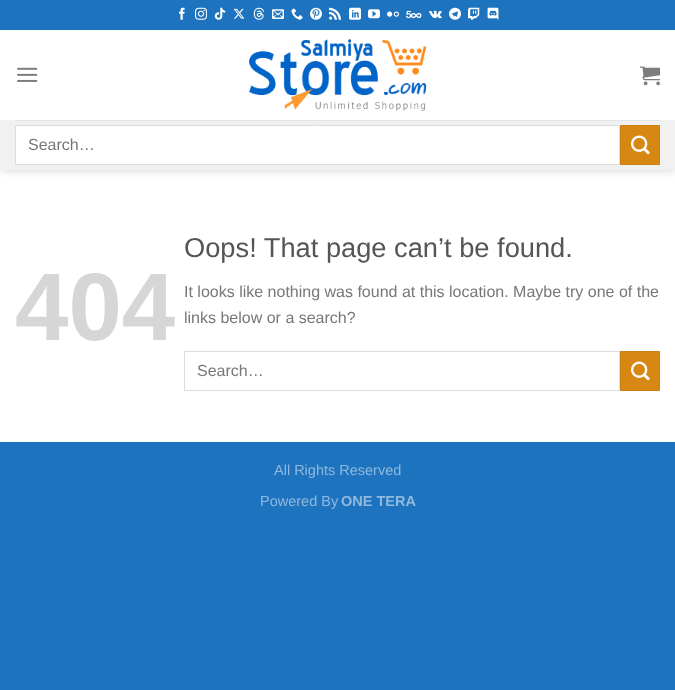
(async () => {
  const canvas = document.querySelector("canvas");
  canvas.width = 675;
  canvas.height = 690;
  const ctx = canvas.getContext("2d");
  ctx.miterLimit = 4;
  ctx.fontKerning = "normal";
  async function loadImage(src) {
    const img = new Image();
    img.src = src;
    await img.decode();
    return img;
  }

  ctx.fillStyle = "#1e73be";
  ctx.fillRect(0, 0, 675, 690);
  ctx.fillStyle = "#ffffff";
  ctx.fillRect(0, 30, 675, 412);
  ctx.save();
  ctx.beginPath();
  ctx.rect(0, 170, 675, 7);
  ctx.clip();
  ctx.fillStyle = "rgba(0, 0, 0, 0.15)";
  ctx.filter = "blur(5px)";
  ctx.beginPath();
  ctx.rect(1, 1, 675, 170);
  ctx.fill();
  ctx.filter = "none";
  ctx.restore();
  ctx.drawImage(await loadImage("img/1.png"), 179, 7, 6, 13);
  ctx.drawImage(await loadImage("img/2.png"), 195, 7, 12, 13);
  ctx.drawImage(await loadImage("img/3.png"), 214, 7, 12, 13);
  ctx.drawImage(await loadImage("img/4.png"), 233, 8, 12, 11);
  ctx.drawImage(await loadImage("img/5.png"), 253, 7, 12, 13);
  ctx.drawImage(await loadImage("img/6.png"), 272, 9, 12, 10);
  ctx.drawImage(await loadImage("img/7.png"), 291, 8, 12, 12);
  ctx.drawImage(await loadImage("img/8.png"), 310, 7, 12, 13);
  ctx.drawImage(await loadImage("img/9.png"), 329, 7, 12, 13);
  ctx.drawImage(await loadImage("img/10.png"), 349, 7, 12, 13);
  ctx.drawImage(await loadImage("img/11.png"), 368, 9, 12, 10);
  ctx.drawImage(await loadImage("img/12.png"), 387, 11, 12, 6);
  ctx.drawImage(await loadImage("img/13.png"), 406, 10, 16, 9);
  ctx.drawImage(await loadImage("img/14.png"), 429, 10, 13, 9);
  ctx.drawImage(await loadImage("img/15.png"), 449, 7, 12, 13);
  ctx.drawImage(await loadImage("img/16.png"), 468, 7, 12, 13);
  ctx.drawImage(await loadImage("img/17.png"), 487, 7, 12, 13);
  ctx.drawImage(await loadImage("img/18.png"), 17, 67, 21, 15);
  ctx.drawImage(await loadImage("img/19.png"), 249, 39, 178, 72);
  ctx.drawImage(await loadImage("img/20.png"), 640, 66, 20, 20);
  ctx.fillStyle = "#f1f1f1";
  ctx.fillRect(0, 120, 675, 50);
  ctx.fillStyle = "#e5e5e5";
  ctx.fillRect(15, 120, 645, 1);
  ctx.fillStyle = "#ffffff";
  ctx.beginPath();
  ctx.rect(15.5, 125.5, 604, 39);
  ctx.fill();
  ctx.strokeStyle = "#dddddd";
  ctx.stroke();
  ctx.fillStyle = "#d68813";
  ctx.beginPath();
  ctx.rect(620.5, 125.5, 39, 39);
  ctx.fill();
  ctx.strokeStyle = "#cb8112";
  ctx.stroke();
  ctx.drawImage(await loadImage("img/21.png"), 631, 135, 19, 20);
  ctx.strokeStyle = "#dddddd";
  ctx.strokeRect(184.5, 351.5, 435, 39);
  ctx.beginPath();
  ctx.rect(620.5, 351.5, 39, 39);
  ctx.fill();
  ctx.strokeStyle = "#cb8112";
  ctx.stroke();
  ctx.drawImage(await loadImage("img/21.png"), 631, 361, 19, 20);
  ctx.font = "16px Liberation Sans";
  ctx.fillStyle = "#777777";
  ctx.fillText("Search…", 28, 150);
  ctx.font = "bold 96px Liberation Sans";
  ctx.fillStyle = "#d6d6d6";
  ctx.fillText("404", 15, 340);
  ctx.font = "27.25px Liberation Sans";
  ctx.fillStyle = "#555555";
  ctx.fillText("Oops! That page can’t be found.", 184, 257);
  ctx.font = "16px Liberation Sans";
  ctx.fillStyle = "#777777";
  for (const [text, x, y] of [
    ["It looks like nothing was found at this location. Maybe try one of the", 184, 297],
    ["links below or a search?", 184, 323],
    ["Search…", 197, 376],
  ]) {
    ctx.fillText(text, x, y);
  }
  ctx.font = "14.5px Liberation Sans";
  ctx.fillStyle = "#8fb9df";
  ctx.fillText("All Rights Reserved", 274, 475);
  ctx.fillText("Powered By", 260, 506);
  ctx.font = "bold 14.5px Liberation Sans";
  ctx.fillText("ONE TERA", 341, 506);
})();
